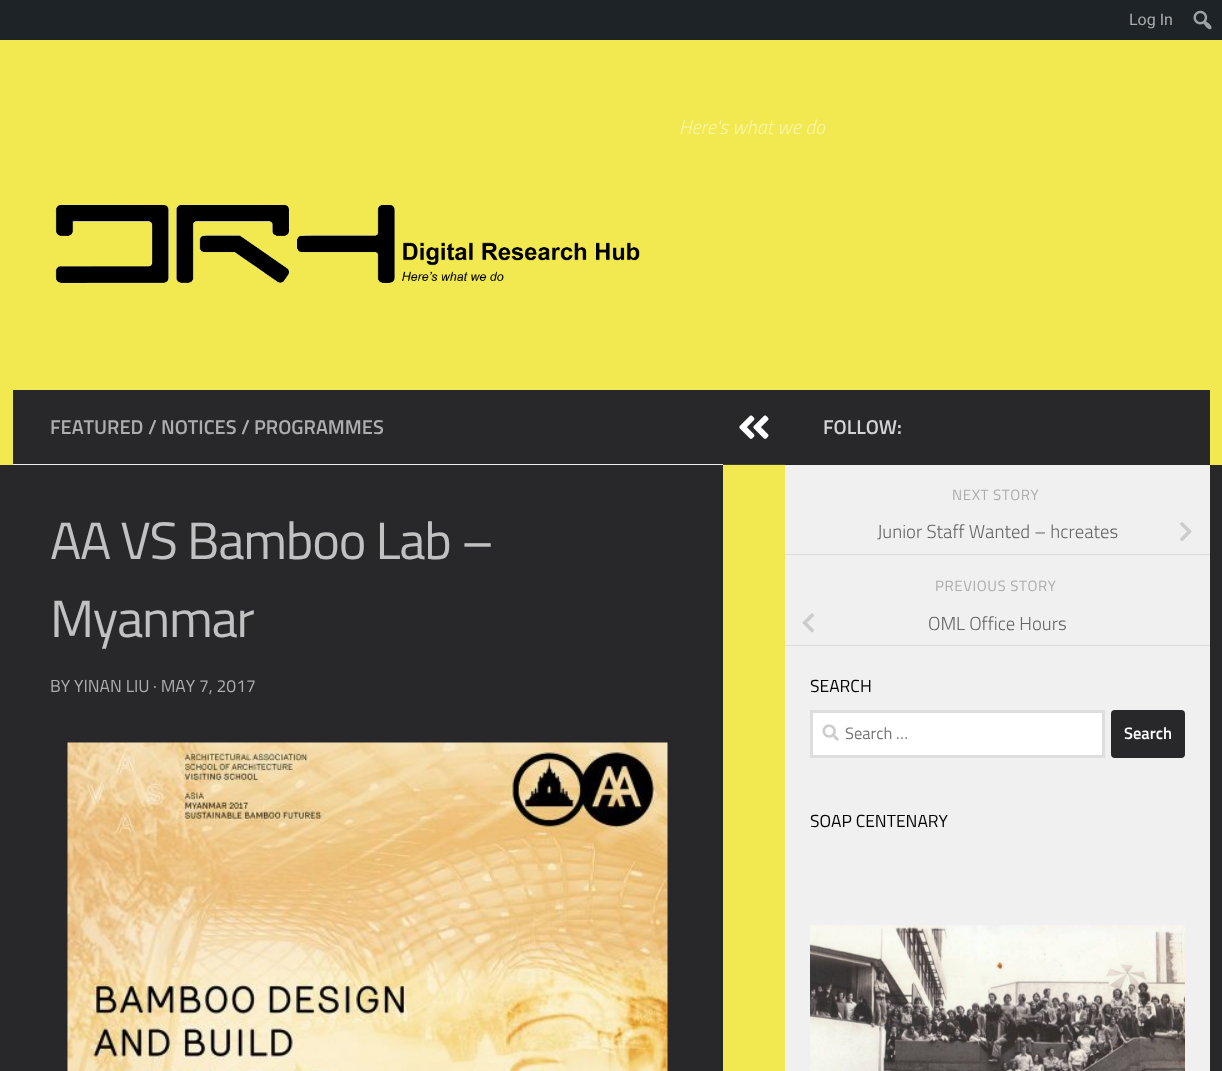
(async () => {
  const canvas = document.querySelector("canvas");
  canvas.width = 1222;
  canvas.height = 1071;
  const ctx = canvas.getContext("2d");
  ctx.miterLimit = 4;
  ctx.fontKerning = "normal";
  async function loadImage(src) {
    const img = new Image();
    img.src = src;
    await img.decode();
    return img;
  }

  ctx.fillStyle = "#28272a";
  ctx.fillRect(0, 0, 1222, 1071);
  ctx.fillStyle = "#1d2327";
  ctx.fillRect(0, 0, 1222, 40);
  ctx.drawImage(await loadImage("img/1.png"), 1193, 10, 19, 20);
  ctx.fillStyle = "#f2e950";
  ctx.fillRect(0, 40, 1222, 425);
  ctx.drawImage(await loadImage("img/2.png"), 55, 204, 585, 80);
  for (const [x, y, w, h, color] of [
    [723, 465, 62, 606, "#f2e950"],
    [13, 390, 710, 75, "#28272a"],
    [13, 464, 710, 1, "#eeeeee"],
  ]) {
    ctx.fillStyle = color;
    ctx.fillRect(x, y, w, h);
  }
  ctx.drawImage(await loadImage("img/3.png"), 67, 742, 601, 329);
  ctx.fillStyle = "#28272a";
  ctx.fillRect(723, 390, 62, 74);
  ctx.fillStyle = "#3e3d3f";
  ctx.fillRect(723, 464, 62, 1);
  ctx.drawImage(await loadImage("img/4.png"), 739, 415, 30, 24);
  for (const [x, y, w, h, color] of [
    [785, 465, 425, 606, "#f0f0f0"],
    [785, 390, 425, 75, "#28272a"],
    [785, 554, 425, 1, "#dddddd"],
  ]) {
    ctx.fillStyle = color;
    ctx.fillRect(x, y, w, h);
  }
  ctx.drawImage(await loadImage("img/5.png"), 1180, 522, 12, 19);
  ctx.fillRect(785, 645, 425, 1);
  ctx.drawImage(await loadImage("img/6.png"), 802, 613, 12, 20);
  ctx.fillStyle = "#ffffff";
  ctx.beginPath();
  ctx.rect(811.5, 711.5, 292, 45);
  ctx.fill();
  ctx.strokeStyle = "#dddddd";
  ctx.lineWidth = 3;
  ctx.stroke();
  ctx.drawImage(await loadImage("img/7.png"), 822, 724, 17, 17);
  ctx.fillStyle = "#28272a";
  ctx.beginPath();
  ctx.roundRect(1111, 710, 74, 48, 4);
  ctx.fill();
  ctx.drawImage(await loadImage("img/8.png"), 810, 925, 375, 146);
  ctx.font = "16px Roboto";
  ctx.fillStyle = "#adadad";
  ctx.fillText("Log In", 1129, 25);
  ctx.font = "italic 300 20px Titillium";
  ctx.fillStyle = "#f9f4a8";
  ctx.fillText("Here's what we do", 679, 134);
  ctx.font = "600 20px Titillium";
  ctx.fillStyle = "#adadad";
  for (const [text, x, y] of [
    ["FEATURED", 50, 434],
    ["/", 148, 434],
    ["NOTICES", 161, 434],
    ["/", 241, 434],
    ["PROGRAMMES", 254, 434],
  ]) {
    ctx.fillText(text, x, y);
  }
  ctx.letterSpacing = "-1.25px";
  ctx.font = "52.5px Titillium";
  ctx.fillStyle = "#c1c1c1";
  ctx.fillText("AA VS Bamboo Lab –", 50, 559);
  ctx.fillText("Myanmar", 50, 637);
  ctx.letterSpacing = "0px";
  ctx.font = "17.5px Titillium";
  ctx.fillStyle = "#adadad";
  for (const [text, x, y] of [
    ["BY", 50, 692],
    ["YINAN LIU", 74, 692],
    ["· MAY 7, 2017", 153, 692],
  ]) {
    ctx.fillText(text, x, y);
  }
  ctx.font = "600 20px Titillium";
  ctx.fillStyle = "#d4d4d4";
  ctx.fillText("FOLLOW:", 823, 434);
  ctx.letterSpacing = "0.6px";
  ctx.font = "15px Titillium";
  ctx.fillStyle = "#adadad";
  ctx.fillText("NEXT STORY", 952, 500);
  ctx.letterSpacing = "0px";
  ctx.font = "300 18.75px Titillium";
  ctx.fillStyle = "#666666";
  ctx.fillText("Junior Staff Wanted – hcreates", 877, 538);
  ctx.letterSpacing = "0.6px";
  ctx.font = "15px Titillium";
  ctx.fillStyle = "#adadad";
  ctx.fillText("PREVIOUS STORY", 935, 591);
  ctx.letterSpacing = "0px";
  ctx.font = "300 18.75px Titillium";
  ctx.fillStyle = "#666666";
  ctx.fillText("OML Office Hours", 928, 630);
  ctx.font = "17.5px Titillium";
  ctx.fillStyle = "#030303";
  ctx.fillText("SEARCH", 810, 692);
  ctx.font = "16.5px Titillium";
  ctx.fillStyle = "#757575";
  ctx.fillText("Search …", 845, 739);
  ctx.font = "600 16.5px Titillium";
  ctx.fillStyle = "#ffffff";
  ctx.fillText("Search", 1124, 739);
  ctx.font = "17.5px Titillium";
  ctx.fillStyle = "#030303";
  ctx.fillText("SOAP CENTENARY", 810, 827);
})();
